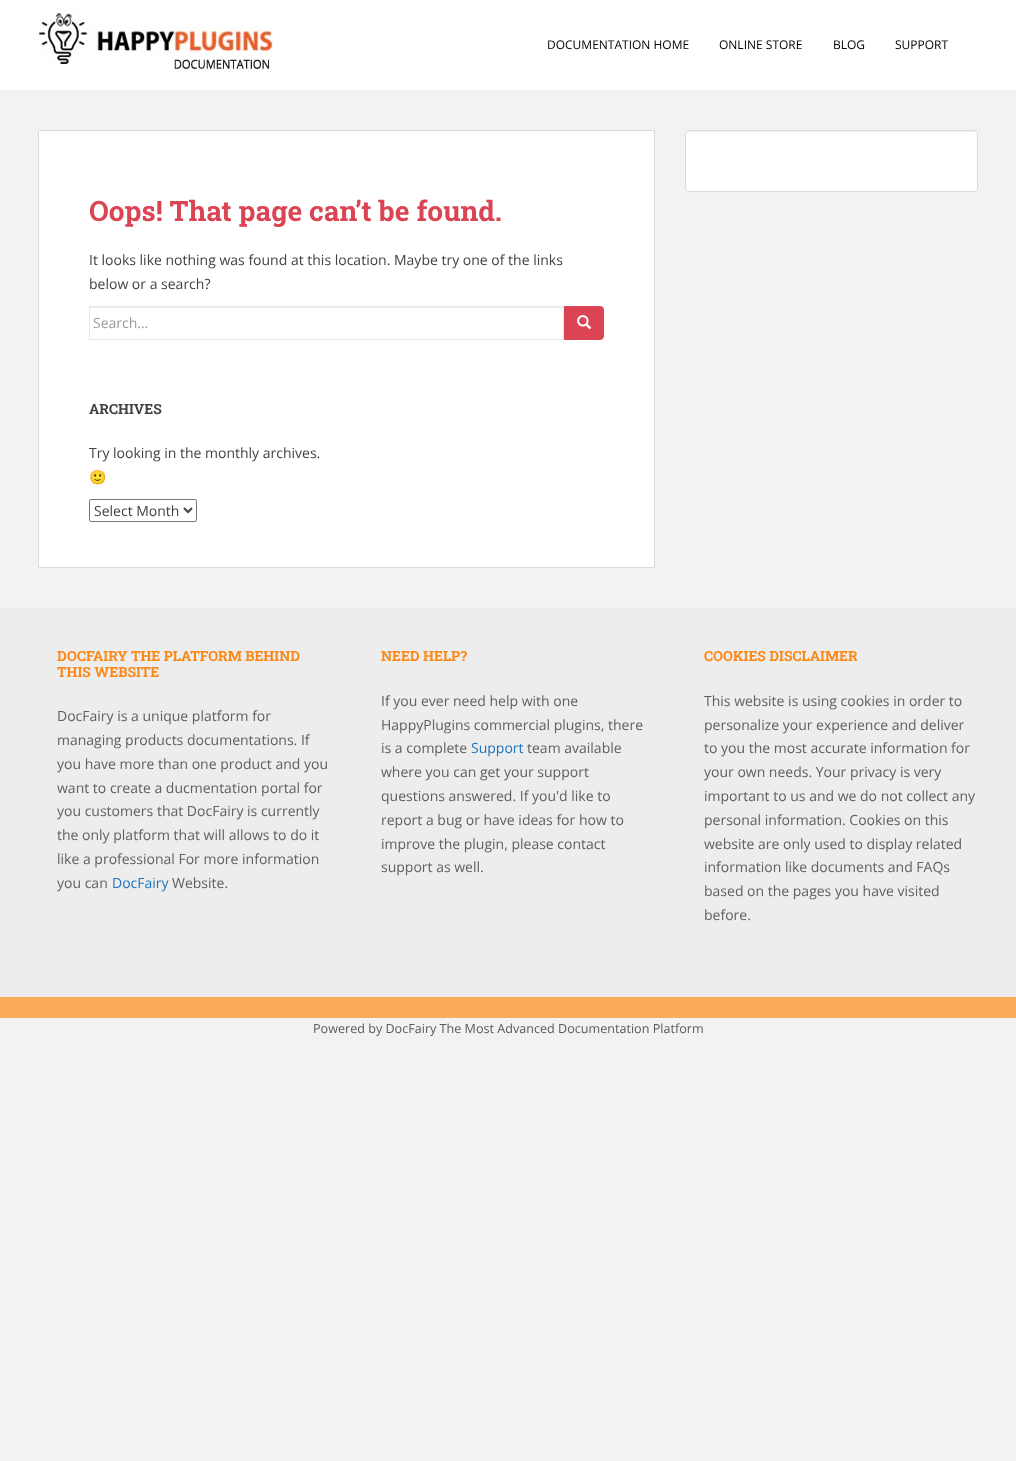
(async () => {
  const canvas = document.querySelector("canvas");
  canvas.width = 1016;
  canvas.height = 1461;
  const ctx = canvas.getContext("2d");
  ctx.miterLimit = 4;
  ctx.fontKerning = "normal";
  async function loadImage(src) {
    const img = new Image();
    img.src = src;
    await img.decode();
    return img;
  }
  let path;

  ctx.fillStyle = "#f2f2f2";
  ctx.fillRect(0, 0, 1016, 1461);
  ctx.fillStyle = "#ffffff";
  ctx.fillRect(0, 0, 1016, 90);
  ctx.drawImage(await loadImage("img/1.png"), 38, 10, 235, 64);
  ctx.beginPath();
  ctx.roundRect(685, 130, 293, 62, 4);
  ctx.fill();
  ctx.fillStyle = "#f2f2f2";
  path = new Path2D("M689 132H974C976 132 977 133 977 135C977 133 976 131 974 131H689C687 131 686 133 686 135C686 133 687 132 689 132Z");
  ctx.fill(path);
  ctx.beginPath();
  ctx.roundRect(685.5, 130.5, 292, 61, 3.5);
  ctx.strokeStyle = "#dadada";
  ctx.stroke();
  ctx.fillStyle = "#ffffff";
  ctx.beginPath();
  ctx.rect(38.5, 130.5, 616, 437);
  ctx.fill();
  ctx.stroke();
  ctx.fillStyle = "#ececec";
  ctx.fillRect(90, 307, 473, 1);
  ctx.strokeStyle = "#e8e8e8";
  ctx.strokeRect(89.5, 306.5, 474, 33);
  ctx.fillStyle = "#da4453";
  ctx.beginPath();
  ctx.roundRect(564.5, 306.5, 39, 33, [0, 3.5, 3.5, 0]);
  ctx.fill();
  ctx.strokeStyle = "#da4453";
  ctx.stroke();
  ctx.drawImage(await loadImage("img/2.png"), 577, 315, 15, 14);
  ctx.beginPath();
  ctx.roundRect(89.5, 499.5, 107, 22, 1.5);
  ctx.strokeStyle = "#767676";
  ctx.stroke();
  path = new Path2D("M184 508L188 512L192 508");
  ctx.strokeStyle = "#424242";
  ctx.lineWidth = 2;
  ctx.stroke(path);
  ctx.fillStyle = "#ededed";
  ctx.fillRect(0, 608, 1016, 389);
  ctx.fillStyle = "#fcab5a";
  ctx.fillRect(0, 997, 1016, 21);
  ctx.font = "12px Open Sans";
  ctx.fillStyle = "#000000";
  for (const [text, x, y] of [
    ["DOCUMENTATION HOME", 547, 49],
    ["ONLINE STORE", 719, 49],
    ["BLOG", 833, 49],
    ["SUPPORT", 895, 49],
  ]) {
    ctx.fillText(text, x, y);
  }
  ctx.font = "bold 28px Roboto Slab";
  ctx.fillStyle = "#da4453";
  ctx.fillText("Oops! That page can’t be found.", 89, 221);
  ctx.font = "14px Open Sans";
  ctx.fillStyle = "#424242";
  ctx.fillText("It looks like nothing was found at this location. Maybe try one of the links", 89, 265);
  ctx.fillText("below or a search?", 89, 289);
  ctx.fillStyle = "#999999";
  ctx.fillText("Search…", 93, 328);
  ctx.font = "bold 14px Roboto Slab";
  ctx.fillStyle = "#424242";
  ctx.fillText("ARCHIVES", 89, 414);
  ctx.font = "14px Open Sans";
  ctx.fillText("Try looking in the monthly archives.", 89, 458);
  ctx.font = "14px Noto Color Emoji";
  ctx.fillText("🙂", 89, 482);
  ctx.font = "14px Open Sans";
  ctx.fillText("Select Month", 94, 516);
  ctx.font = "bold 14px Roboto Slab";
  ctx.fillStyle = "#fc8714";
  ctx.fillText("DOCFAIRY THE PLATFORM BEHIND", 57, 661);
  ctx.fillText("THIS WEBSITE", 57, 677);
  ctx.font = "14px Open Sans";
  ctx.fillStyle = "#606060";
  for (const [text, x, y] of [
    ["DocFairy is a unique platform for", 57, 721],
    ["managing products documentations. If", 57, 745],
    ["you have more than one product and you", 57, 769],
    ["want to create a ducmentation portal for", 57, 793],
    ["you customers that DocFairy is currently", 57, 816],
    ["the only platform that will allows to do it", 57, 840],
    ["like a professional For more information", 57, 864],
    ["you can", 57, 888],
  ]) {
    ctx.fillText(text, x, y);
  }
  ctx.fillStyle = "#1e73be";
  ctx.fillText("DocFairy", 112, 888);
  ctx.fillStyle = "#606060";
  ctx.fillText("Website.", 172, 888);
  ctx.font = "bold 14px Roboto Slab";
  ctx.fillStyle = "#fc8714";
  ctx.fillText("NEED HELP?", 381, 661);
  ctx.font = "14px Open Sans";
  ctx.fillStyle = "#606060";
  for (const [text, x, y] of [
    ["If you ever need help with one", 381, 706],
    ["HappyPlugins commercial plugins, there", 381, 730],
    ["is a complete", 381, 753],
  ]) {
    ctx.fillText(text, x, y);
  }
  ctx.fillStyle = "#1e73be";
  ctx.fillText("Support", 471, 753);
  ctx.fillStyle = "#606060";
  for (const [text, x, y] of [
    ["team available", 527, 753],
    ["where you can get your support", 381, 777],
    ["questions answered. If you'd like to", 381, 801],
    ["report a bug or have ideas for how to", 381, 825],
    ["improve the plugin, please contact", 381, 849],
    ["support as well.", 381, 872],
  ]) {
    ctx.fillText(text, x, y);
  }
  ctx.font = "bold 14px Roboto Slab";
  ctx.fillStyle = "#fc8714";
  ctx.fillText("COOKIES DISCLAIMER", 704, 661);
  ctx.font = "14px Open Sans";
  ctx.fillStyle = "#606060";
  for (const [text, x, y] of [
    ["This website is using cookies in order to", 704, 706],
    ["personalize your experience and deliver", 704, 730],
    ["to you the most accurate information for", 704, 753],
    ["your own needs. Your privacy is very", 704, 777],
    ["important to us and we do not collect any", 704, 801],
    ["personal information. Cookies on this", 704, 825],
    ["website are only used to display related", 704, 849],
    ["information like documents and FAQs", 704, 872],
    ["based on the pages you have visited", 704, 896],
    ["before.", 704, 920],
  ]) {
    ctx.fillText(text, x, y);
  }
  ctx.font = "12.6px Open Sans";
  ctx.fillStyle = "#5a5a5a";
  ctx.fillText("Powered by DocFairy The Most Advanced Documentation Platform", 313, 1033);
})();
